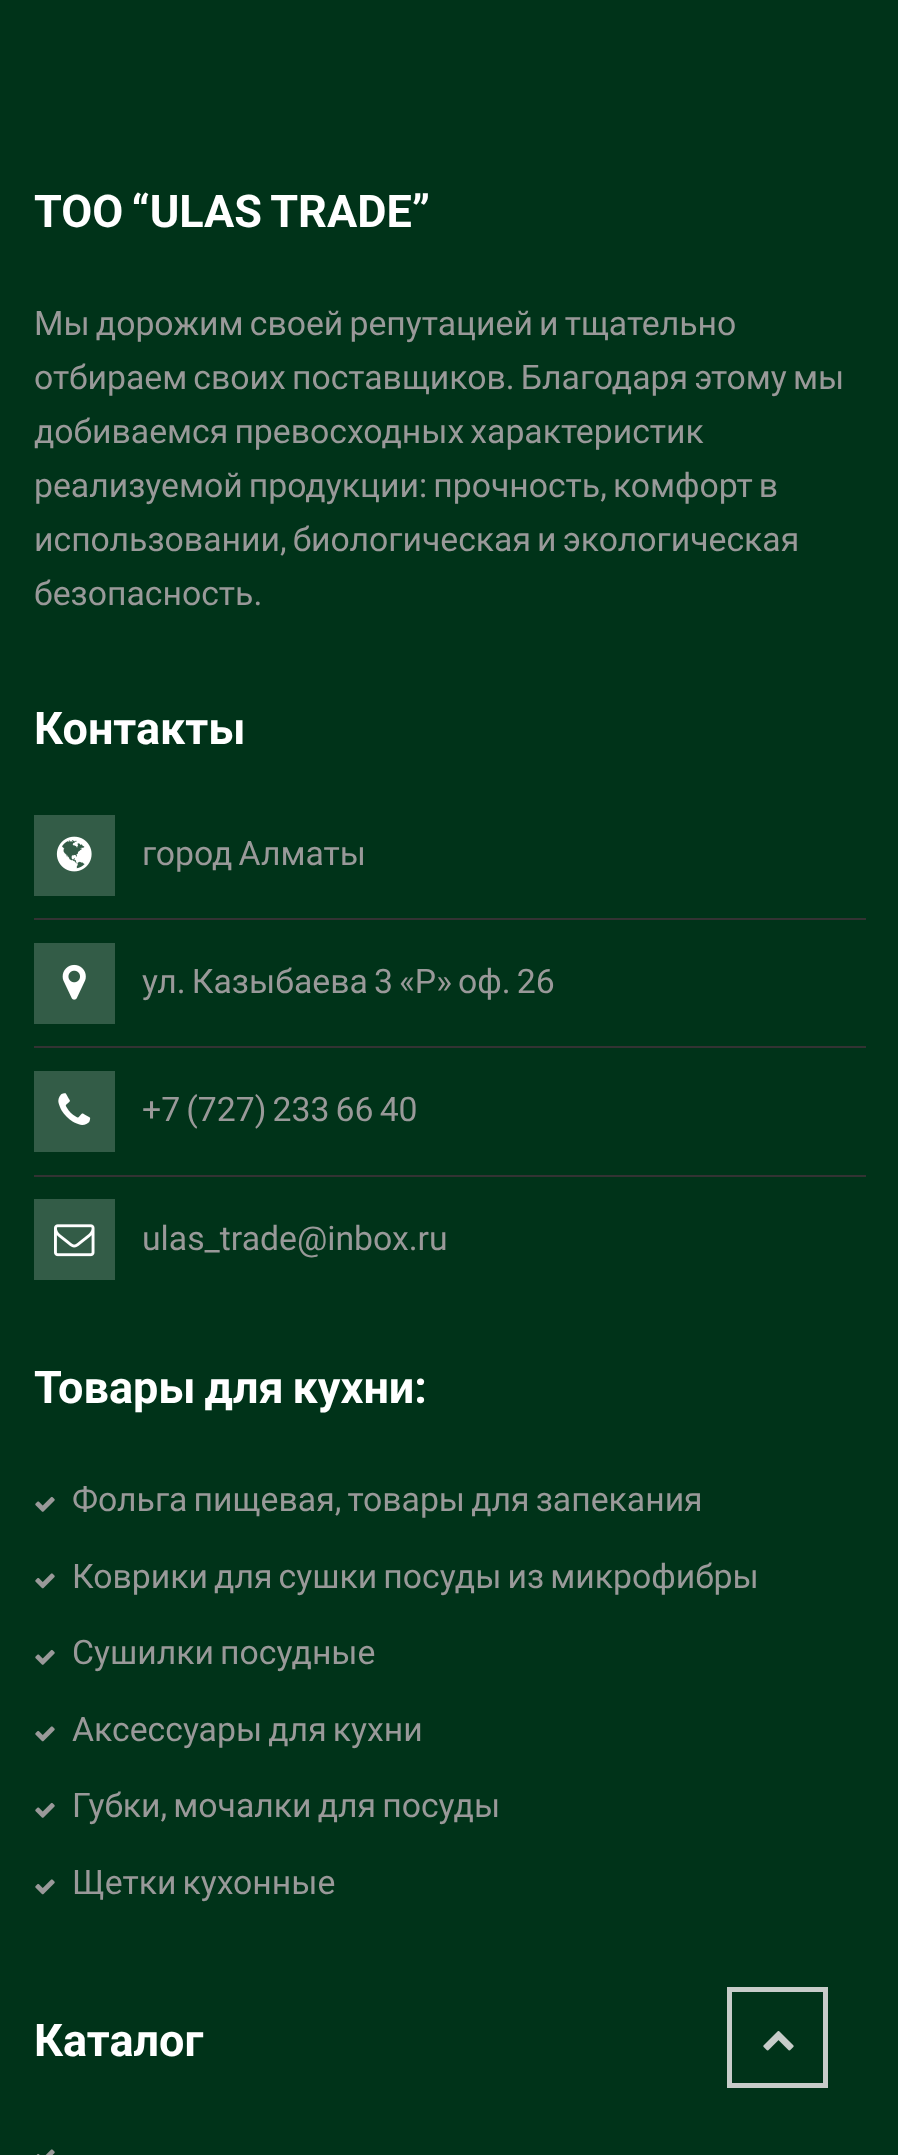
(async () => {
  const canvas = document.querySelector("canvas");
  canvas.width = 898;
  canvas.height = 2155;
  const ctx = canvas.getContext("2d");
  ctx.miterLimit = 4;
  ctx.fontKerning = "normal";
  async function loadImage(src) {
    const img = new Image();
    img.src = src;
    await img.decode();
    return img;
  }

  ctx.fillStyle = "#003319";
  ctx.fillRect(0, 0, 898, 2155);
  ctx.fillStyle = "#333333";
  ctx.fillRect(34, 918, 832, 2);
  ctx.fillStyle = "#335c47";
  ctx.fillRect(34, 815, 81, 81);
  ctx.drawImage(await loadImage("img/1.png"), 56, 836, 36, 36);
  ctx.fillStyle = "#333333";
  ctx.fillRect(34, 1046, 832, 2);
  ctx.fillStyle = "#335c47";
  ctx.fillRect(34, 943, 81, 81);
  ctx.drawImage(await loadImage("img/2.png"), 62, 964, 24, 36);
  ctx.fillStyle = "#333333";
  ctx.fillRect(34, 1175, 832, 2);
  ctx.fillStyle = "#335c47";
  ctx.fillRect(34, 1071, 81, 81);
  ctx.drawImage(await loadImage("img/3.png"), 58, 1093, 33, 32);
  ctx.fillRect(34, 1199, 81, 81);
  ctx.drawImage(await loadImage("img/4.png"), 54, 1224, 41, 33);
  ctx.drawImage(await loadImage("img/5.png"), 35, 1496, 20, 16);
  ctx.drawImage(await loadImage("img/6.png"), 35, 1573, 20, 16);
  ctx.drawImage(await loadImage("img/5.png"), 35, 1649, 20, 16);
  ctx.drawImage(await loadImage("img/6.png"), 35, 1726, 20, 16);
  ctx.drawImage(await loadImage("img/5.png"), 35, 1802, 20, 16);
  ctx.drawImage(await loadImage("img/6.png"), 35, 1879, 20, 16);
  ctx.drawImage(await loadImage("img/7.png"), 36, 2149, 19, 6);
  ctx.strokeStyle = "#c7ccc9";
  ctx.lineWidth = 5;
  ctx.strokeRect(729.5, 1989.5, 96, 96);
  ctx.drawImage(await loadImage("img/8.png"), 763, 2031, 31, 20);
  ctx.wordSpacing = "-3px";
  ctx.font = "bold 45px Roboto";
  ctx.fillStyle = "#ffffff";
  ctx.fillText("ТОО “ULAS TRADE”", 34, 227);
  ctx.wordSpacing = "-2.25px";
  ctx.font = "33.75px Roboto";
  ctx.fillStyle = "#999999";
  for (const [text, x, y] of [
    ["Мы дорожим своей репутацией и тщательно", 34, 335],
    ["отбираем своих поставщиков. Благодаря этому мы", 34, 389],
    ["добиваемся превосходных характеристик", 34, 443],
    ["реализуемой продукции: прочность, комфорт в", 34, 497],
    ["использовании, биологическая и экологическая", 34, 551],
  ]) {
    ctx.fillText(text, x, y);
  }
  ctx.wordSpacing = "0px";
  ctx.fillText("безопасность.", 34, 605);
  ctx.font = "bold 45px Roboto";
  ctx.fillStyle = "#ffffff";
  ctx.fillText("Контакты", 34, 744);
  ctx.wordSpacing = "-2.25px";
  ctx.font = "33.75px Roboto";
  ctx.fillStyle = "#999999";
  for (const [text, x, y] of [
    ["город Алматы", 142, 865],
    ["ул. Казыбаева 3 «Р» оф. 26", 142, 993],
    ["+7 (727) 233 66 40", 142, 1121],
  ]) {
    ctx.fillText(text, x, y);
  }
  ctx.wordSpacing = "0px";
  ctx.fillText("ulas_trade@inbox.ru", 142, 1250);
  ctx.wordSpacing = "-2.25px";
  ctx.font = "bold 45px Roboto";
  ctx.fillStyle = "#ffffff";
  ctx.fillText("Товары для кухни:", 34, 1403);
  ctx.font = "33.75px Roboto";
  ctx.fillStyle = "#999999";
  for (const [text, x, y] of [
    ["Фольга пищевая, товары для запекания", 72, 1511],
    ["Коврики для сушки посуды из микрофибры", 72, 1588],
    ["Сушилки посудные", 72, 1664],
    ["Аксессуары для кухни", 72, 1741],
    ["Губки, мочалки для посуды", 72, 1817],
    ["Щетки кухонные", 72, 1894],
  ]) {
    ctx.fillText(text, x, y);
  }
  ctx.wordSpacing = "0px";
  ctx.font = "bold 45px Roboto";
  ctx.fillStyle = "#ffffff";
  ctx.fillText("Каталог", 34, 2056);
})();
